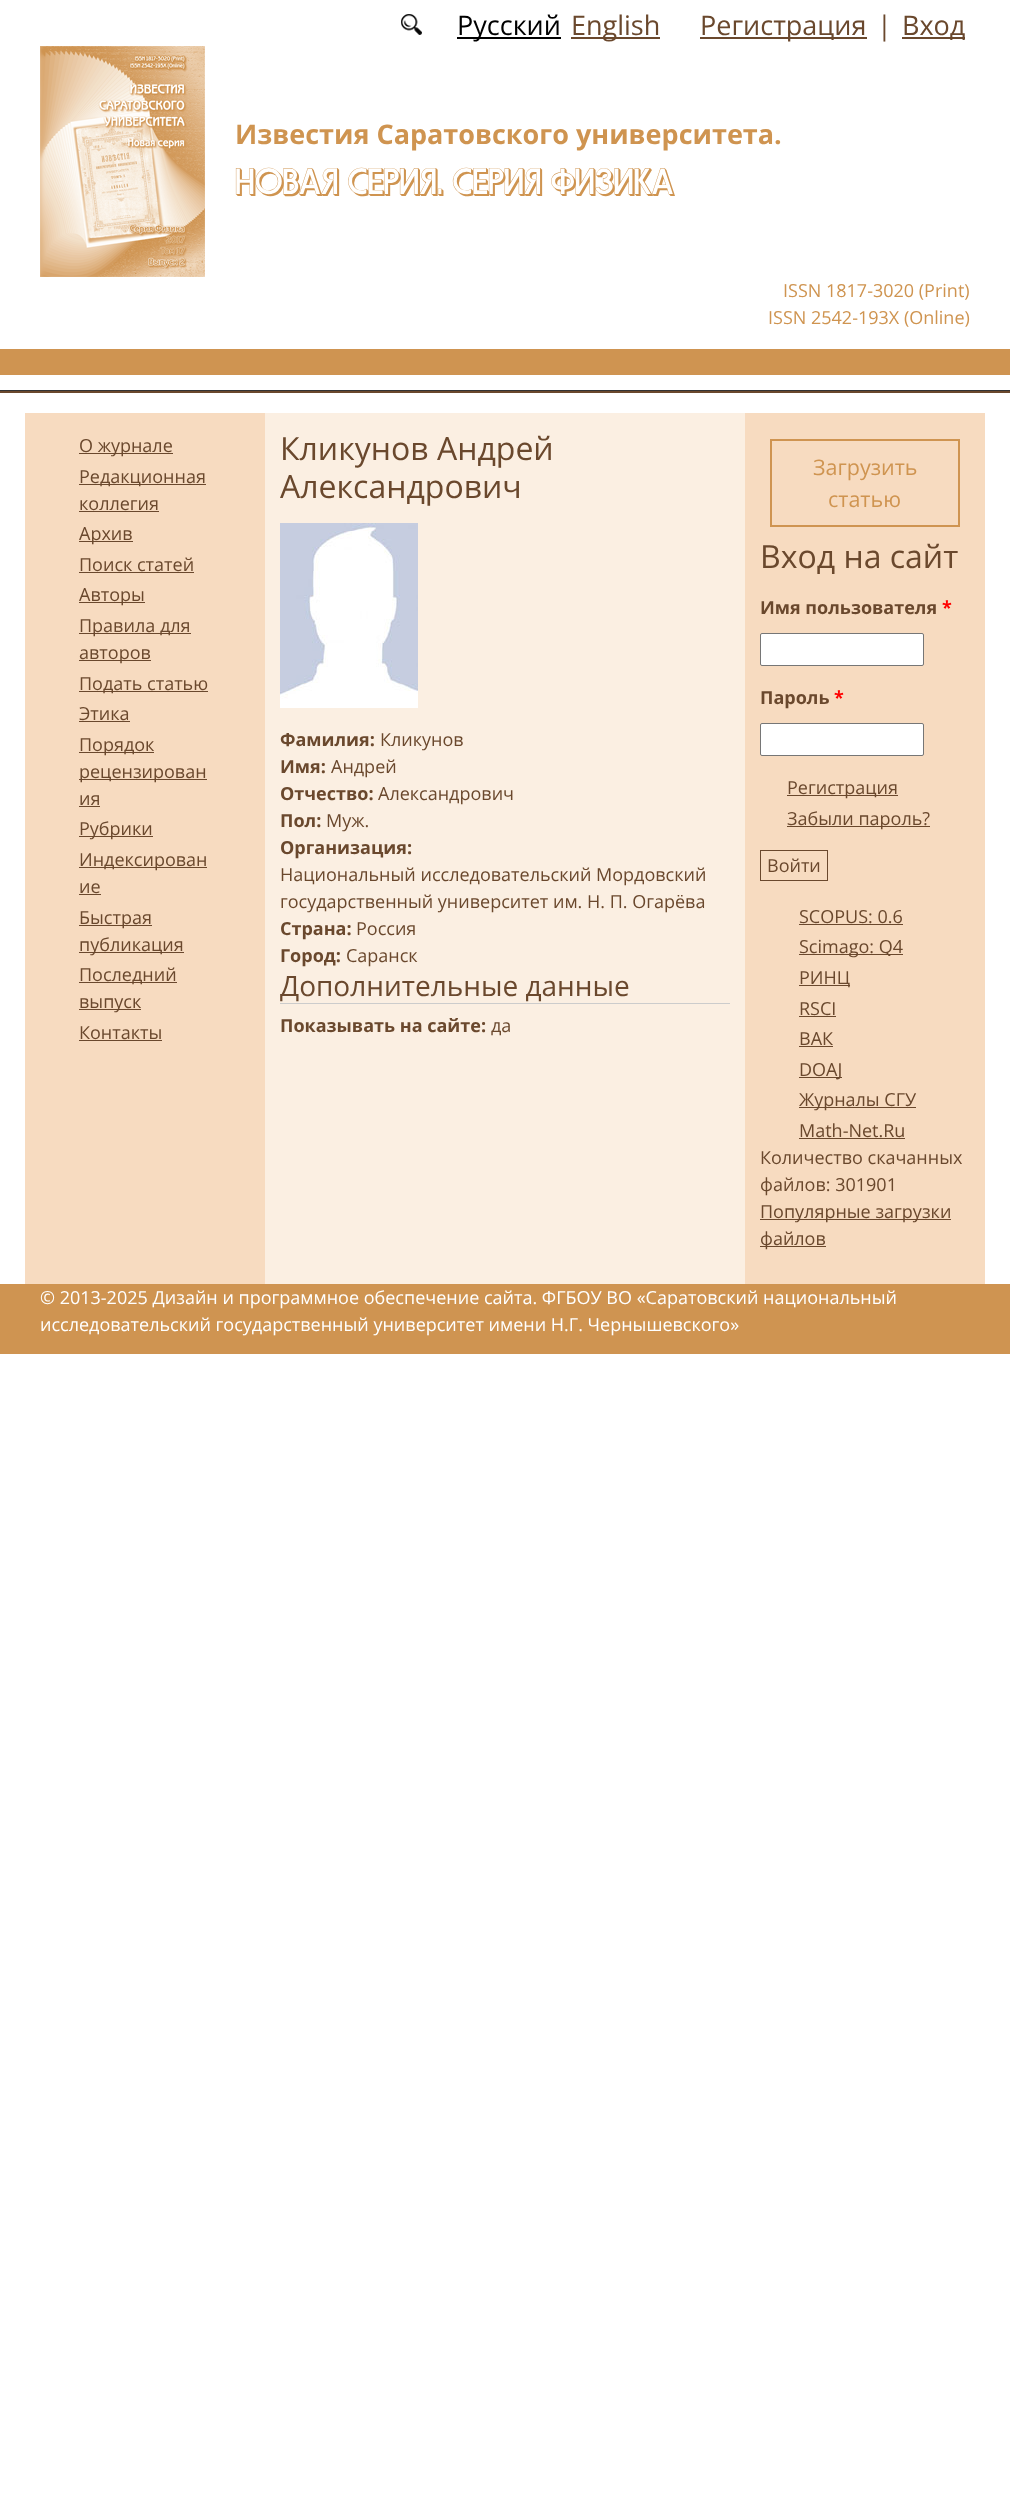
(async () => {
  const canvas = document.querySelector("canvas");
  canvas.width = 1010;
  canvas.height = 2495;
  const ctx = canvas.getContext("2d");
  ctx.miterLimit = 4;
  ctx.fontKerning = "normal";
  async function loadImage(src) {
    const img = new Image();
    img.src = src;
    await img.decode();
    return img;
  }

  ctx.fillStyle = "#ffffff";
  ctx.fillRect(0, 0, 1010, 2495);
  ctx.drawImage(await loadImage("img/1.png"), 401, 14, 21, 21);
  for (const [x, y, w, h, color] of [
    [457, 37, 104, 2, "#000000"],
    [571, 37, 89, 2, "#6a482d"],
    [700, 37, 167, 2, "#6a482d"],
    [902, 37, 63, 2, "#6a482d"],
  ]) {
    ctx.fillStyle = color;
    ctx.fillRect(x, y, w, h);
  }
  ctx.drawImage(await loadImage("img/2.png"), 40, 46, 165, 231);
  for (const [x, y, w, h, color] of [
    [0, 349, 1010, 26, "#cf9451"],
    [0, 390, 1010, 1, "#333333"],
    [0, 391, 1010, 2, "#6a482d"],
    [25, 413, 240, 871, "#f7dbc0"],
    [79, 453, 94, 1, "#6a482d"],
    [79, 484, 127, 1, "#6a482d"],
    [79, 511, 80, 1, "#6a482d"],
    [79, 541, 54, 1, "#6a482d"],
    [79, 572, 115, 1, "#6a482d"],
    [79, 602, 66, 1, "#6a482d"],
    [79, 633, 112, 1, "#6a482d"],
    [79, 660, 72, 1, "#6a482d"],
    [79, 691, 129, 1, "#6a482d"],
    [79, 721, 51, 1, "#6a482d"],
    [79, 752, 75, 1, "#6a482d"],
    [79, 779, 128, 1, "#6a482d"],
    [79, 806, 21, 1, "#6a482d"],
    [79, 836, 74, 1, "#6a482d"],
    [79, 867, 128, 1, "#6a482d"],
    [79, 894, 22, 1, "#6a482d"],
    [79, 925, 73, 1, "#6a482d"],
    [79, 952, 105, 1, "#6a482d"],
    [79, 982, 98, 1, "#6a482d"],
    [79, 1009, 62, 1, "#6a482d"],
    [79, 1040, 83, 1, "#6a482d"],
    [265, 413, 480, 871, "#fbefe2"],
  ]) {
    ctx.fillStyle = color;
    ctx.fillRect(x, y, w, h);
  }
  ctx.drawImage(await loadImage("img/3.png"), 280, 523, 138, 185);
  ctx.fillStyle = "#cccccc";
  ctx.fillRect(280, 1003, 450, 1);
  ctx.fillStyle = "#f7dbc0";
  ctx.fillRect(745, 413, 240, 871);
  ctx.strokeStyle = "#cf9451";
  ctx.lineWidth = 2;
  ctx.strokeRect(771, 440, 188, 86);
  ctx.fillStyle = "#ffffff";
  ctx.beginPath();
  ctx.roundRect(760.5, 633.5, 163, 32, 1.5);
  ctx.fill();
  ctx.strokeStyle = "#767676";
  ctx.lineWidth = 1;
  ctx.stroke();
  ctx.beginPath();
  ctx.roundRect(760.5, 723.5, 163, 32, 1.5);
  ctx.fill();
  ctx.stroke();
  ctx.fillStyle = "#6a482d";
  ctx.fillRect(787, 795, 111, 1);
  ctx.fillRect(787, 826, 143, 1);
  ctx.strokeStyle = "#6a482d";
  ctx.strokeRect(760.5, 850.5, 67, 30);
  for (const [x, y, w, h, color] of [
    [799, 924, 104, 1, "#6a482d"],
    [799, 954, 104, 1, "#6a482d"],
    [799, 985, 51, 1, "#6a482d"],
    [799, 1016, 37, 1, "#6a482d"],
    [799, 1046, 34, 1, "#6a482d"],
    [799, 1077, 43, 1, "#6a482d"],
    [799, 1107, 117, 1, "#6a482d"],
    [799, 1138, 106, 1, "#6a482d"],
    [760, 1219, 191, 1, "#6a482d"],
    [760, 1246, 66, 1, "#6a482d"],
    [0, 1284, 1010, 70, "#cf9451"],
  ]) {
    ctx.fillStyle = color;
    ctx.fillRect(x, y, w, h);
  }
  ctx.font = "27px Open Sans";
  ctx.fillStyle = "#000000";
  ctx.fillText("Русский", 457, 35);
  ctx.fillStyle = "#6a482d";
  for (const [text, x, y] of [
    ["English", 571, 35],
    ["Регистрация", 700, 35],
    ["|", 877, 35],
    ["Вход", 902, 35],
  ]) {
    ctx.fillText(text, x, y);
  }
  ctx.font = "bold 27px Open Sans";
  ctx.fillStyle = "#cf9450";
  ctx.fillText("Известия Саратовского университета.", 235, 144);
  ctx.font = "36px 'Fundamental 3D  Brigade'";
  ctx.fillText("НОВАЯ СЕРИЯ. СЕРИЯ ФИЗИКА", 235, 194);
  ctx.font = "18px Open Sans";
  ctx.fillText("ISSN 1817-3020 (Print)", 783, 297);
  ctx.fillText("ISSN 2542-193X (Online)", 768, 324);
  ctx.fillStyle = "#6a482d";
  for (const [text, x, y] of [
    ["О журнале", 79, 452],
    ["Редакционная", 79, 483],
    ["коллегия", 79, 510],
    ["Архив", 79, 540],
    ["Поиск статей", 79, 571],
    ["Авторы", 79, 601],
    ["Правила для", 79, 632],
    ["авторов", 79, 659],
    ["Подать статью", 79, 690],
    ["Этика", 79, 720],
    ["Порядок", 79, 751],
    ["рецензирован", 79, 778],
    ["ия", 79, 805],
    ["Рубрики", 79, 835],
    ["Индексирован", 79, 866],
    ["ие", 79, 893],
    ["Быстрая", 79, 924],
    ["публикация", 79, 951],
    ["Последний", 79, 981],
    ["выпуск", 79, 1008],
    ["Контакты", 79, 1039],
  ]) {
    ctx.fillText(text, x, y);
  }
  ctx.font = "32px Open Sans";
  ctx.fillText("Кликунов Андрей", 280, 460);
  ctx.fillText("Александрович", 280, 498);
  ctx.font = "bold 18px Open Sans";
  ctx.fillText("Фамилия:", 280, 746);
  ctx.font = "18px Open Sans";
  ctx.fillText("Кликунов", 380, 746);
  ctx.font = "bold 18px Open Sans";
  ctx.fillText("Имя:", 280, 773);
  ctx.font = "18px Open Sans";
  ctx.fillText("Андрей", 331, 773);
  ctx.font = "bold 18px Open Sans";
  ctx.fillText("Отчество:", 280, 800);
  ctx.font = "18px Open Sans";
  ctx.fillText("Александрович", 378, 800);
  ctx.font = "bold 18px Open Sans";
  ctx.fillText("Пол:", 280, 827);
  ctx.font = "18px Open Sans";
  ctx.fillText("Муж.", 326, 827);
  ctx.font = "bold 18px Open Sans";
  ctx.fillText("Организация:", 280, 854);
  ctx.font = "18px Open Sans";
  ctx.fillText("Национальный исследовательский Мордовский", 280, 881);
  ctx.fillText("государственный университет им. Н. П. Огарёва", 280, 908);
  ctx.font = "bold 18px Open Sans";
  ctx.fillText("Страна:", 280, 935);
  ctx.font = "18px Open Sans";
  ctx.fillText("Россия", 356, 935);
  ctx.font = "bold 18px Open Sans";
  ctx.fillText("Город:", 280, 962);
  ctx.font = "18px Open Sans";
  ctx.fillText("Саранск", 346, 962);
  ctx.font = "28px Open Sans";
  ctx.fillText("Дополнительные данные", 280, 996);
  ctx.font = "bold 18px Open Sans";
  ctx.fillText("Показывать на сайте:", 280, 1032);
  ctx.font = "18px Open Sans";
  ctx.fillText("да", 491, 1032);
  ctx.font = "21.5px Open Sans";
  ctx.fillStyle = "#cf9450";
  ctx.fillText("Загрузить", 813, 475);
  ctx.fillText("статью", 828, 507);
  ctx.font = "32px Open Sans";
  ctx.fillStyle = "#6a482d";
  ctx.fillText("Вход на сайт", 760, 568);
  ctx.font = "bold 18px Open Sans";
  ctx.fillText("Имя пользователя", 760, 614);
  ctx.fillStyle = "#ff0000";
  ctx.fillText("*", 942, 614);
  ctx.fillStyle = "#6a482d";
  ctx.fillText("Пароль", 760, 704);
  ctx.fillStyle = "#ff0000";
  ctx.fillText("*", 834, 704);
  ctx.font = "18px Open Sans";
  ctx.fillStyle = "#6a482d";
  for (const [text, x, y] of [
    ["Регистрация", 787, 794],
    ["Забыли пароль?", 787, 825],
    ["Войти", 767, 872],
    ["SCOPUS: 0.6", 799, 923],
    ["Scimago: Q4", 799, 953],
    ["РИНЦ", 799, 984],
    ["RSCI", 799, 1015],
    ["ВАК", 799, 1045],
    ["DOAJ", 799, 1076],
    ["Журналы СГУ", 799, 1106],
    ["Math-Net.Ru", 799, 1137],
    ["Количество скачанных", 760, 1164],
    ["файлов: 301901", 760, 1191],
    ["Популярные загрузки", 760, 1218],
    ["файлов", 760, 1245],
  ]) {
    ctx.fillText(text, x, y);
  }
  ctx.fillStyle = "#ffffff";
  ctx.fillText("© 2013-2025 Дизайн и программное обеспечение сайта. ФГБОУ ВО «Саратовский национальный", 40, 1304);
  ctx.fillText("исследовательский государственный университет имени Н.Г. Чернышевского»", 40, 1331);
})();
